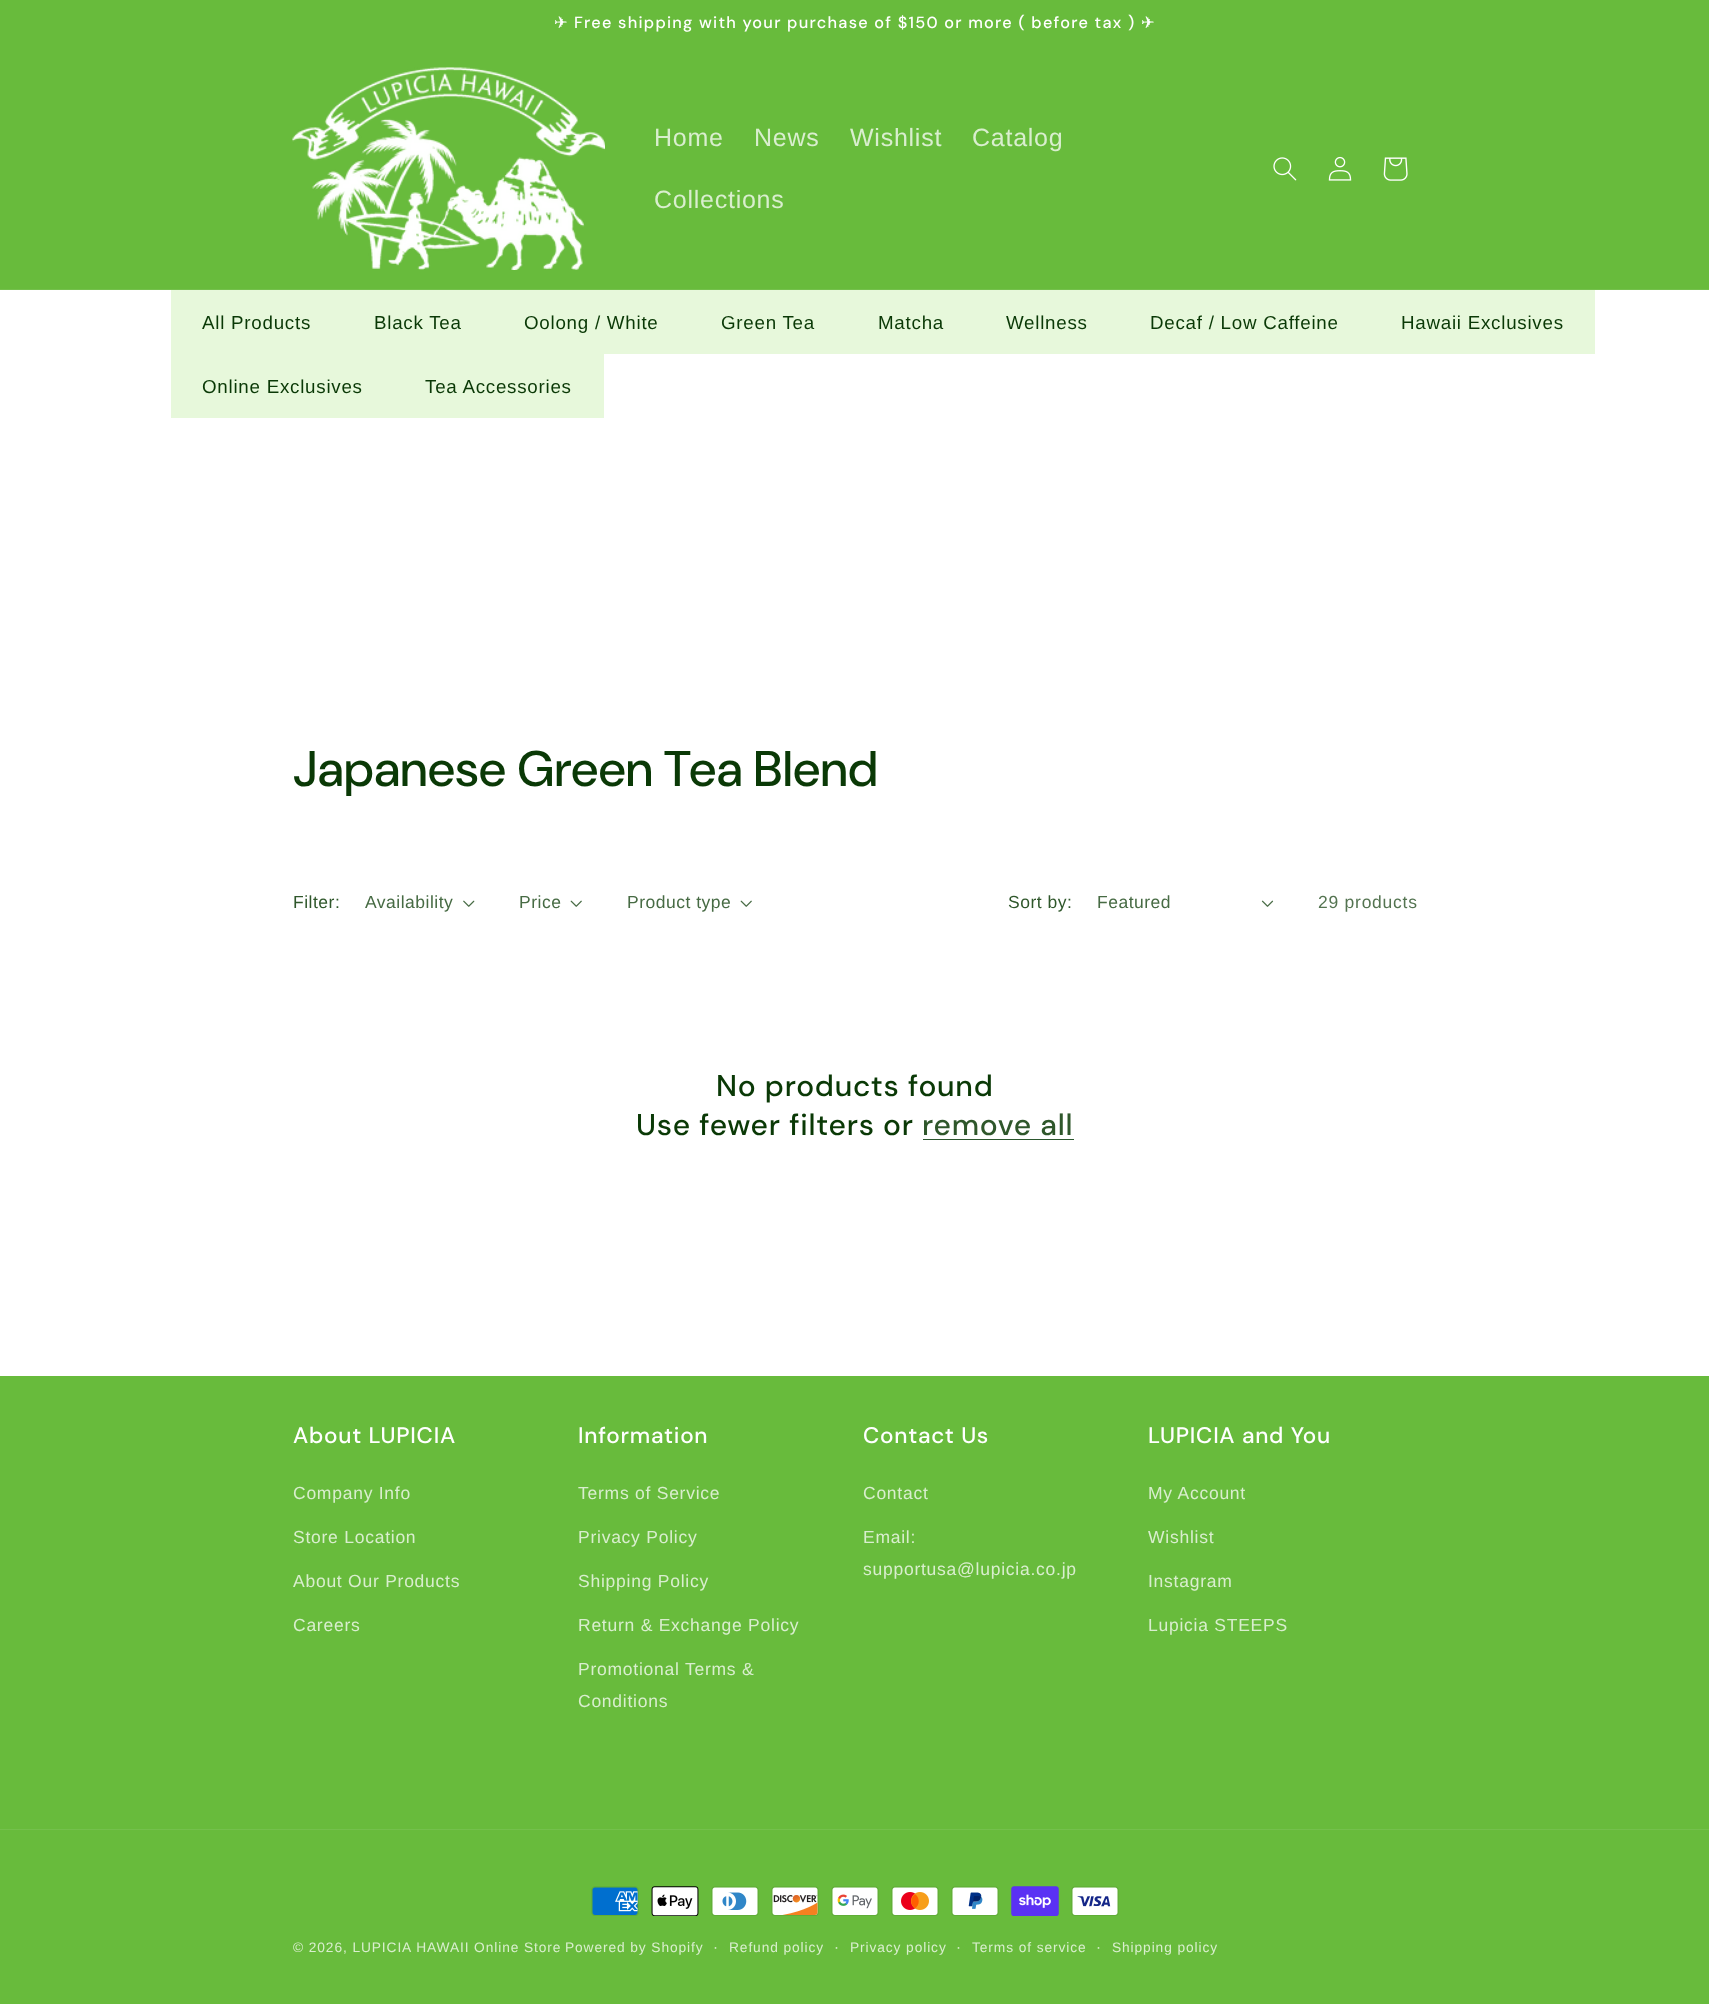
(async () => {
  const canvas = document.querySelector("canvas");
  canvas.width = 1709;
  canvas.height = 2004;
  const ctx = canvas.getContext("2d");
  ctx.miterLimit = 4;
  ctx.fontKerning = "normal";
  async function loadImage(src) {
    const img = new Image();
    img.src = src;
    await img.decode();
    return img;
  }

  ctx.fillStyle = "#ffffff";
  ctx.fillRect(0, 0, 1709, 2004);
  ctx.fillStyle = "#68bb3c";
  ctx.fillRect(0, 0, 1709, 289);
  ctx.fillStyle = "#74c04c";
  ctx.fillRect(0, 289, 1709, 1);
  ctx.drawImage(await loadImage("img/1.png"), 292, 67, 313, 203);
  ctx.drawImage(await loadImage("img/2.png"), 1273, 157, 24, 24);
  ctx.drawImage(await loadImage("img/3.png"), 1328, 156, 24, 25);
  ctx.drawImage(await loadImage("img/4.png"), 1383, 157, 25, 24);
  ctx.fillStyle = "#e7f8db";
  ctx.fillRect(171, 290, 1424, 64);
  ctx.fillRect(171, 354, 433, 64);
  ctx.drawImage(await loadImage("img/5.png"), 463, 900, 12, 7);
  ctx.drawImage(await loadImage("img/6.png"), 570, 900, 12, 7);
  ctx.drawImage(await loadImage("img/6.png"), 740, 900, 12, 7);
  ctx.drawImage(await loadImage("img/7.png"), 1261, 900, 13, 7);
  for (const [x, y, w, h, color] of [
    [923, 1139, 151, 1, "#2b572e"],
    [0, 1376, 1709, 628, "#68bb3c"],
    [0, 1829, 1709, 1, "#74c04c"],
  ]) {
    ctx.fillStyle = color;
    ctx.fillRect(x, y, w, h);
  }
  ctx.drawImage(await loadImage("img/8.png"), 591, 1886, 48, 30);
  ctx.drawImage(await loadImage("img/9.png"), 651, 1886, 48, 30);
  ctx.drawImage(await loadImage("img/10.png"), 711, 1886, 48, 30);
  ctx.drawImage(await loadImage("img/11.png"), 771, 1886, 48, 30);
  ctx.drawImage(await loadImage("img/12.png"), 831, 1886, 48, 30);
  ctx.drawImage(await loadImage("img/13.png"), 891, 1886, 48, 30);
  ctx.drawImage(await loadImage("img/14.png"), 951, 1886, 48, 30);
  ctx.drawImage(await loadImage("img/15.png"), 1011, 1886, 48, 30);
  ctx.drawImage(await loadImage("img/16.png"), 1071, 1886, 48, 30);
  ctx.letterSpacing = "1.25px";
  ctx.font = "16.25px DejaVu Sans";
  ctx.fillStyle = "#ffffff";
  ctx.fillText("✈", 554, 28);
  ctx.font = "500 16.25px 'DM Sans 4'";
  ctx.fillText("Free shipping with your purchase of $150 or more ( before tax )", 574, 28);
  ctx.font = "16.25px DejaVu Sans";
  ctx.fillText("✈", 1141, 28);
  ctx.letterSpacing = "0.75px";
  ctx.font = "25px Liberation Sans";
  ctx.fillStyle = "#d9eece";
  for (const [text, x, y] of [
    ["Home", 654, 146],
    ["News", 754, 146],
    ["Wishlist", 850, 146],
    ["Catalog", 972, 146],
    ["Collections", 654, 208],
  ]) {
    ctx.fillText(text, x, y);
  }
  ctx.font = "18.75px Liberation Sans";
  ctx.fillStyle = "#0a3906";
  for (const [text, x, y] of [
    ["All Products", 202, 329],
    ["Black Tea", 374, 329],
    ["Oolong / White", 524, 329],
    ["Green Tea", 721, 329],
    ["Matcha", 878, 329],
    ["Wellness", 1006, 329],
    ["Decaf / Low Caffeine", 1150, 329],
    ["Hawaii Exclusives", 1401, 329],
    ["Online Exclusives", 202, 393],
    ["Tea Accessories", 425, 393],
  ]) {
    ctx.fillText(text, x, y);
  }
  ctx.font = "500 50px DM Sans";
  ctx.fillText("Japanese Green Tea Blend", 293, 786);
  ctx.letterSpacing = "0.5px";
  ctx.font = "17.5px Liberation Sans";
  ctx.fillStyle = "#2f572b";
  ctx.fillText("Filter:", 293, 908);
  ctx.fillStyle = "#476b44";
  for (const [text, x, y] of [
    ["Availability", 365, 908],
    ["Price", 519, 908],
    ["Product type", 627, 908],
  ]) {
    ctx.fillText(text, x, y);
  }
  ctx.fillStyle = "#2f572b";
  ctx.fillText("Sort by:", 1008, 908);
  ctx.fillStyle = "#476b44";
  ctx.fillText("Featured", 1097, 908);
  ctx.letterSpacing = "0.75px";
  ctx.fillStyle = "#547451";
  ctx.fillText("29 products", 1318, 908);
  ctx.font = "500 30px 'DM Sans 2'";
  ctx.fillStyle = "#0a3906";
  ctx.fillText("No products found", 716, 1096);
  ctx.fillText("Use fewer filters or", 636, 1135);
  ctx.fillStyle = "#2f572b";
  ctx.fillText("remove all", 922, 1135);
  ctx.font = "500 22.5px 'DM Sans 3'";
  ctx.fillStyle = "#ffffff";
  ctx.fillText("About LUPICIA", 293, 1443);
  ctx.font = "17.5px Liberation Sans";
  ctx.fillStyle = "#d9eece";
  for (const [text, x, y] of [
    ["Company Info", 293, 1499],
    ["Store Location", 293, 1543],
    ["About Our Products", 293, 1587],
    ["Careers", 293, 1631],
  ]) {
    ctx.fillText(text, x, y);
  }
  ctx.font = "500 22.5px 'DM Sans 3'";
  ctx.fillStyle = "#ffffff";
  ctx.fillText("Information", 578, 1443);
  ctx.font = "17.5px Liberation Sans";
  ctx.fillStyle = "#d9eece";
  for (const [text, x, y] of [
    ["Terms of Service", 578, 1499],
    ["Privacy Policy", 578, 1543],
    ["Shipping Policy", 578, 1587],
    ["Return & Exchange Policy", 578, 1631],
    ["Promotional Terms &", 578, 1675],
    ["Conditions", 578, 1707],
  ]) {
    ctx.fillText(text, x, y);
  }
  ctx.font = "500 22.5px 'DM Sans 3'";
  ctx.fillStyle = "#ffffff";
  ctx.fillText("Contact Us", 863, 1443);
  ctx.font = "17.5px Liberation Sans";
  ctx.fillStyle = "#d9eece";
  for (const [text, x, y] of [
    ["Contact", 863, 1499],
    ["Email:", 863, 1543],
    ["supportusa@lupicia.co.jp", 863, 1575],
  ]) {
    ctx.fillText(text, x, y);
  }
  ctx.font = "500 22.5px 'DM Sans 3'";
  ctx.fillStyle = "#ffffff";
  ctx.fillText("LUPICIA and You", 1148, 1443);
  ctx.font = "17.5px Liberation Sans";
  ctx.fillStyle = "#d9eece";
  for (const [text, x, y] of [
    ["My Account", 1148, 1499],
    ["Wishlist", 1148, 1543],
    ["Instagram", 1148, 1587],
    ["Lupicia STEEPS", 1148, 1631],
  ]) {
    ctx.fillText(text, x, y);
  }
  ctx.letterSpacing = "0.9px";
  ctx.font = "13.75px Liberation Sans";
  ctx.fillText("© 2026, LUPICIA HAWAII Online Store", 293, 1952);
  ctx.fillText("Powered by Shopify", 565, 1952);
  ctx.font = "15px Liberation Sans";
  ctx.fillText("·", 713, 1952);
  ctx.font = "13.75px Liberation Sans";
  ctx.fillText("Refund policy", 729, 1952);
  ctx.font = "15px Liberation Sans";
  ctx.fillText("·", 834, 1952);
  ctx.font = "13.75px Liberation Sans";
  ctx.fillText("Privacy policy", 850, 1952);
  ctx.font = "15px Liberation Sans";
  ctx.fillText("·", 956, 1952);
  ctx.font = "13.75px Liberation Sans";
  ctx.fillText("Terms of service", 972, 1952);
  ctx.font = "15px Liberation Sans";
  ctx.fillText("·", 1096, 1952);
  ctx.font = "13.75px Liberation Sans";
  ctx.fillText("Shipping policy", 1112, 1952);
})();
